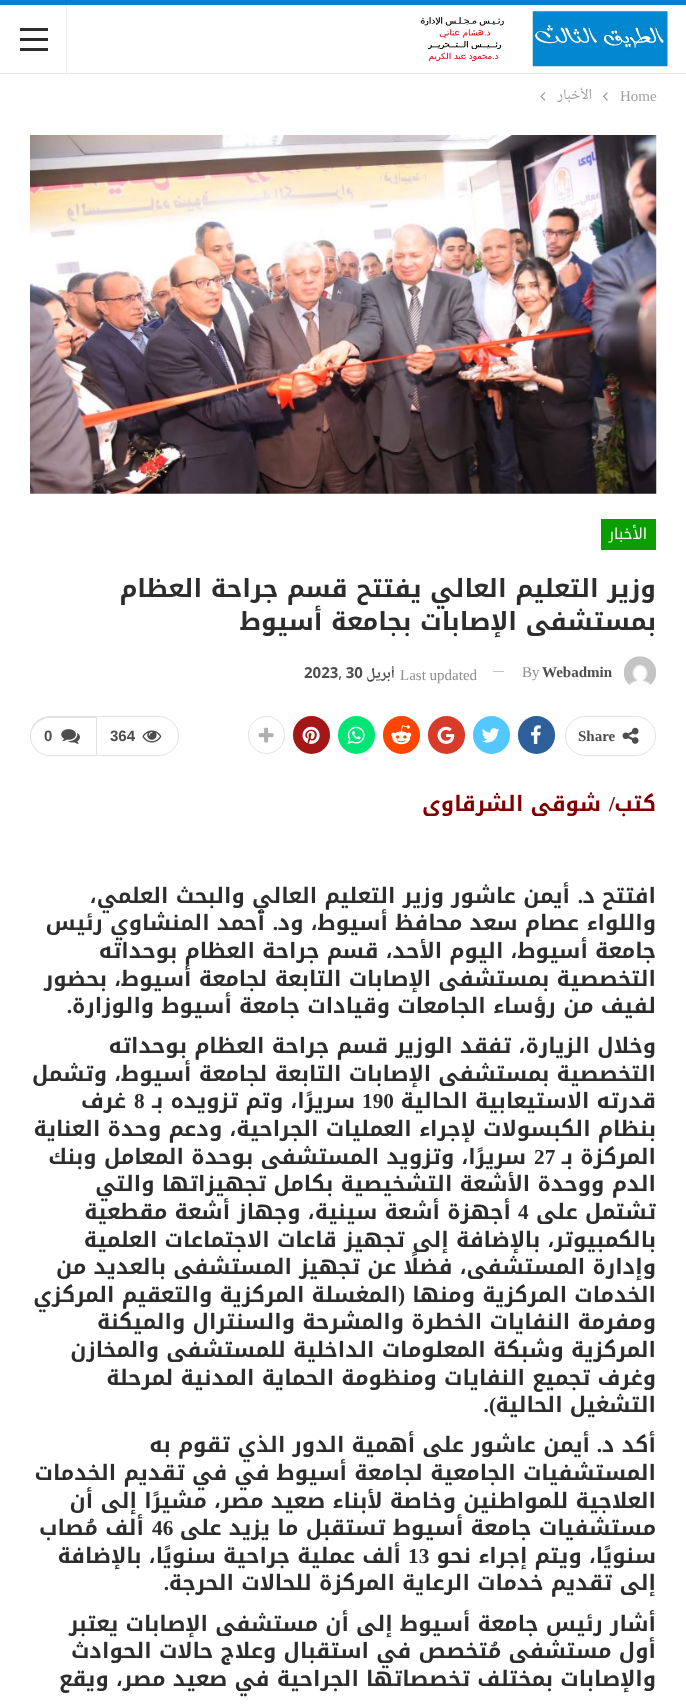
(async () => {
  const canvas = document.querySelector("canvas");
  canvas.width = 686;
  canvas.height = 1707;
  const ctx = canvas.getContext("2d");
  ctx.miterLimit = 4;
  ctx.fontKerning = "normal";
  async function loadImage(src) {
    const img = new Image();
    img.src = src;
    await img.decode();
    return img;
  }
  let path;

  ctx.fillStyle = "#0080ce";
  ctx.fillRect(0, 0, 686, 1707);
  ctx.fillStyle = "#ffffff";
  ctx.fillRect(0, 5, 686, 1702);
  ctx.fillStyle = "#e5e5e5";
  ctx.fillRect(0, 73, 686, 1);
  ctx.drawImage(await loadImage("img/1.png"), 419, 11, 249, 56);
  for (const [x, y, w, h, color] of [
    [66, 5, 1, 68, "#ededed"],
    [20, 38, 28, 3, "#2c2c2c"],
    [20, 28, 28, 3, "#2c2c2c"],
    [20, 48, 28, 3, "#2c2c2c"],
  ]) {
    ctx.fillStyle = color;
    ctx.fillRect(x, y, w, h);
  }
  ctx.drawImage(await loadImage("img/2.png"), 603, 92, 5, 9);
  ctx.drawImage(await loadImage("img/3.png"), 540, 92, 6, 9);
  ctx.drawImage(await loadImage("img/4.png"), 30, 135, 627, 359);
  ctx.fillStyle = "#0a9e01";
  ctx.fillRect(601, 519, 55, 31);
  ctx.drawImage(await loadImage("img/5.png"), 624, 656, 32, 30);
  ctx.fillStyle = "#c4c4c4";
  ctx.fillRect(493, 671, 11, 1);
  ctx.beginPath();
  ctx.roundRect(565.5, 716.5, 90, 39, 19.5);
  ctx.strokeStyle = "#e2e2e2";
  ctx.stroke();
  ctx.drawImage(await loadImage("img/6.png"), 622, 727, 17, 17);
  ctx.fillStyle = "#2d5f9a";
  ctx.beginPath();
  ctx.roundRect(518, 716, 37, 38, 18.5);
  ctx.fill();
  ctx.drawImage(await loadImage("img/7.png"), 531, 725, 10, 19);
  ctx.fillStyle = "#53c7ff";
  ctx.beginPath();
  ctx.roundRect(473, 716, 37, 38, 18.5);
  ctx.fill();
  ctx.drawImage(await loadImage("img/8.png"), 481, 728, 19, 15);
  ctx.fillStyle = "#d93b2b";
  ctx.beginPath();
  ctx.roundRect(428, 716, 37, 38, 18.5);
  ctx.fill();
  ctx.drawImage(await loadImage("img/9.png"), 437, 726, 18, 18);
  ctx.fillStyle = "#ff4500";
  ctx.beginPath();
  ctx.roundRect(383, 716, 37, 38, 18.5);
  ctx.fill();
  ctx.drawImage(await loadImage("img/10.png"), 391, 725, 21, 20);
  ctx.fillStyle = "#00e676";
  ctx.beginPath();
  ctx.roundRect(338, 716, 37, 38, 18.5);
  ctx.fill();
  ctx.drawImage(await loadImage("img/11.png"), 347, 726, 18, 18);
  ctx.fillStyle = "#a41719";
  ctx.beginPath();
  ctx.roundRect(293, 716, 37, 38, 18.5);
  ctx.fill();
  ctx.drawImage(await loadImage("img/12.png"), 302, 726, 18, 18);
  ctx.beginPath();
  ctx.roundRect(248.5, 716.5, 36, 37, 18);
  ctx.stroke();
  ctx.drawImage(await loadImage("img/13.png"), 258, 727, 16, 16);
  ctx.beginPath();
  ctx.roundRect(96.5, 716.5, 82, 39, [0, 19.5, 19.5, 0]);
  ctx.stroke();
  ctx.drawImage(await loadImage("img/14.png"), 142, 730, 20, 13);
  ctx.fillStyle = "#e2e2e2";
  path = new Path2D("M50 716H96V756H50C39 756 30 747 30 736C30 725 39 716 50 716ZM50 718H96V755H50C40 755 31 747 31 736C31 726 40 718 50 718Z");
  ctx.fill(path, "evenodd");
  ctx.drawImage(await loadImage("img/15.png"), 61, 729, 19, 15);
  ctx.font = "15px Liberation Serif";
  ctx.fillStyle = "#9e9e9e";
  ctx.fillText("Home", 620, 101);
  ctx.direction = "rtl";
  ctx.font = "15px Noto Naskh Arabic UI";
  ctx.fillText("الأخبار", 592, 101);
  ctx.font = "15px Noto Kufi Arabic";
  ctx.fillStyle = "#ffffff";
  ctx.fillText("الأخبار", 647, 539);
  ctx.font = "bold 25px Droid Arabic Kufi";
  ctx.fillStyle = "#2d2d2d";
  ctx.fillText("وزير التعليم العالي يفتتح قسم جراحة العظام", 656, 597);
  ctx.fillText("بمستشفى الإصابات بجامعة أسيوط", 656, 630);
  ctx.direction = "ltr";
  ctx.font = "bold 15px Liberation Serif";
  ctx.fillStyle = "#4d4d4d";
  ctx.fillText("Webadmin", 542, 677);
  ctx.font = "15px Liberation Serif";
  ctx.fillStyle = "#8f8f8f";
  ctx.fillText("By", 522, 677);
  ctx.fillText("Last updated", 400, 680);
  ctx.direction = "rtl";
  ctx.font = "bold 15px Noto Naskh Arabic UI";
  ctx.fillStyle = "#4d4d4d";
  ctx.fillText("أبريل", 395, 680);
  ctx.direction = "ltr";
  ctx.fillText("2023, 30", 304, 680);
  ctx.font = "bold 15px Liberation Serif";
  ctx.fillText("Share", 578, 741);
  ctx.font = "bold 15px Liberation Sans";
  ctx.fillText("364", 110, 741);
  ctx.fillText("0", 44, 741);
  ctx.direction = "rtl";
  ctx.font = "bold 21.25px Droid Arabic Kufi";
  ctx.fillStyle = "#800000";
  ctx.fillText("كتب", 656, 811);
  ctx.font = "bold 21.25px Liberation Serif";
  ctx.fillText("/", 615, 811);
  ctx.font = "bold 21.25px Droid Arabic Kufi";
  ctx.fillText("شوقى الشرقاوى", 601, 811);
  ctx.fillStyle = "#2d2d2d";
  ctx.fillText("افتتح د", 656, 903);
  ctx.font = "bold 21.25px Liberation Serif";
  ctx.fillText(".", 583, 903);
  ctx.font = "bold 21.25px Droid Arabic Kufi";
  ctx.fillText("أيمن عاشور وزير التعليم العالي والبحث العلمي،", 570, 903);
  ctx.fillText("واللواء عصام سعد محافظ أسيوط، ود", 656, 930);
  ctx.font = "bold 21.25px Liberation Serif";
  ctx.fillText(".", 278, 930);
  ctx.font = "bold 21.25px Droid Arabic Kufi";
  for (const [text, x, y] of [
    ["أحمد المنشاوي رئيس", 265, 930],
    ["جامعة أسيوط، اليوم الأحد، قسم جراحة العظام بوحداته", 656, 958],
    ["التخصصية بمستشفى الإصابات التابعة لجامعة أسيوط، بحضور", 656, 986],
    ["لفيف من رؤساء الجامعات وقيادات جامعة أسيوط والوزارة", 656, 1013],
  ]) {
    ctx.fillText(text, x, y);
  }
  ctx.font = "bold 21.25px Liberation Serif";
  ctx.fillText(".", 72, 1013);
  ctx.font = "bold 21.25px Droid Arabic Kufi";
  for (const [text, x, y] of [
    ["وخلال الزيارة، تفقد الوزير قسم جراحة العظام بوحداته", 656, 1053],
    ["التخصصية بمستشفى الإصابات التابعة لجامعة أسيوط، وتشمل", 656, 1081],
    ["قدرته الاستيعابية الحالية", 656, 1108],
  ]) {
    ctx.fillText(text, x, y);
  }
  ctx.direction = "ltr";
  ctx.font = "bold 21.25px Liberation Serif";
  ctx.fillText("190", 362, 1108);
  ctx.direction = "rtl";
  ctx.font = "bold 21.25px Droid Arabic Kufi";
  ctx.fillText("سريرًا، وتم تزويده بـ", 355, 1108);
  ctx.direction = "ltr";
  ctx.font = "bold 21.25px Liberation Serif";
  ctx.fillText("8", 134, 1108);
  ctx.direction = "rtl";
  ctx.font = "bold 21.25px Droid Arabic Kufi";
  for (const [text, x, y] of [
    ["غرف", 126, 1108],
    ["بنظام الكبسولات لإجراء العمليات الجراحية، ودعم وحدة العناية", 656, 1136],
    ["المركزة بـ", 656, 1164],
  ]) {
    ctx.fillText(text, x, y);
  }
  ctx.direction = "ltr";
  ctx.font = "bold 21.25px Liberation Serif";
  ctx.fillText("27", 534, 1164);
  ctx.direction = "rtl";
  ctx.font = "bold 21.25px Droid Arabic Kufi";
  for (const [text, x, y] of [
    ["سريرًا، وتزويد المستشفى بوحدة المعامل وبنك", 526, 1164],
    ["الدم ووحدة الأشعة التشخيصية بكامل تجهيزاتها والتي", 656, 1191],
    ["تشتمل على", 656, 1219],
  ]) {
    ctx.fillText(text, x, y);
  }
  ctx.direction = "ltr";
  ctx.font = "bold 21.25px Liberation Serif";
  ctx.fillText("4", 518, 1219);
  ctx.direction = "rtl";
  ctx.font = "bold 21.25px Droid Arabic Kufi";
  for (const [text, x, y] of [
    ["أجهزة أشعة سينية، وجهاز أشعة مقطعية", 511, 1219],
    ["بالكمبيوتر، بالإضافة إلى تجهيز قاعات الاجتماعات العلمية", 656, 1247],
    ["وإدارة المستشفى، فضلًا عن تجهيز المستشفى بالعديد من", 656, 1274],
    ["الخدمات المركزية ومنها", 656, 1302],
  ]) {
    ctx.fillText(text, x, y);
  }
  ctx.font = "bold 21.25px Liberation Serif";
  ctx.fillText("(", 405, 1302);
  ctx.font = "bold 21.25px Droid Arabic Kufi";
  for (const [text, x, y] of [
    ["المغسلة المركزية والتعقيم المركزي", 398, 1302],
    ["ومفرمة النفايات الخطرة والمشرحة والسنترال والميكنة", 656, 1329],
    ["المركزية وشبكة المعلومات الداخلية للمستشفى والمخازن", 656, 1357],
    ["وغرف تجميع النفايات ومنظومة الحماية المدنية لمرحلة", 656, 1385],
    ["التشغيل الحالية", 656, 1412],
  ]) {
    ctx.fillText(text, x, y);
  }
  ctx.font = "bold 21.25px Liberation Serif";
  ctx.fillText(").", 496, 1412);
  ctx.font = "bold 21.25px Droid Arabic Kufi";
  ctx.fillText("أكد د", 656, 1452);
  ctx.font = "bold 21.25px Liberation Serif";
  ctx.fillText(".", 602, 1452);
  ctx.font = "bold 21.25px Droid Arabic Kufi";
  for (const [text, x, y] of [
    ["أيمن عاشور على أهمية الدور الذي تقوم به", 590, 1452],
    ["المستشفيات الجامعية لجامعة أسيوط في في تقديم الخدمات", 656, 1480],
    ["العلاجية للمواطنين وخاصة لأبناء صعيد مصر، مشيرًا إلى أن", 656, 1508],
    ["مستشفيات جامعة أسيوط تستقبل ما يزيد على", 656, 1535],
  ]) {
    ctx.fillText(text, x, y);
  }
  ctx.direction = "ltr";
  ctx.font = "bold 21.25px Liberation Serif";
  ctx.fillText("46", 152, 1535);
  ctx.direction = "rtl";
  ctx.font = "bold 21.25px Droid Arabic Kufi";
  ctx.fillText("ألف مُصاب", 144, 1535);
  ctx.fillText("سنويًا، ويتم إجراء نحو", 656, 1563);
  ctx.direction = "ltr";
  ctx.font = "bold 21.25px Liberation Serif";
  ctx.fillText("13", 408, 1563);
  ctx.direction = "rtl";
  ctx.font = "bold 21.25px Droid Arabic Kufi";
  ctx.fillText("ألف عملية جراحية سنويًا، بالإضافة", 401, 1563);
  ctx.fillText("إلى تقديم خدمات الرعاية المركزة للحالات الحرجة", 656, 1590);
  ctx.font = "bold 21.25px Liberation Serif";
  ctx.fillText(".", 169, 1590);
  ctx.font = "bold 21.25px Droid Arabic Kufi";
  for (const [text, x, y] of [
    ["أشار رئيس جامعة أسيوط إلى أن مستشفى الإصابات يعتبر", 656, 1631],
    ["أول مستشفى مُتخصص في استقبال وعلاج حالات الحوادث", 656, 1658],
    ["والإصابات بمختلف تخصصاتها الجراحية في صعيد مصر، ويقع", 656, 1686],
  ]) {
    ctx.fillText(text, x, y);
  }
})();
